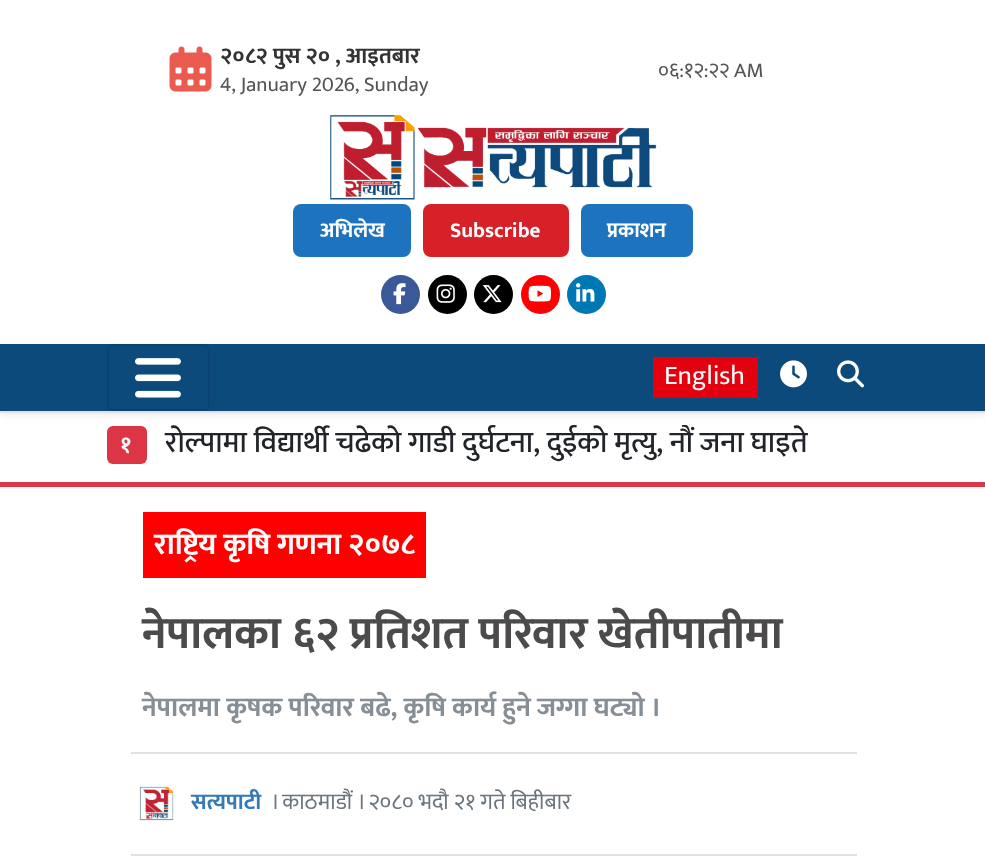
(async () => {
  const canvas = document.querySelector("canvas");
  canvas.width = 985;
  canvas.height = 861;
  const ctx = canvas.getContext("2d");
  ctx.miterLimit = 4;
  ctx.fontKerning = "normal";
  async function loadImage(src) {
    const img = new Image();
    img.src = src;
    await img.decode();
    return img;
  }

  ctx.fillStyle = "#ffffff";
  ctx.fillRect(0, 0, 985, 861);
  ctx.drawImage(await loadImage("img/1.png"), 169, 46, 43, 46);
  ctx.drawImage(await loadImage("img/2.png"), 330, 115, 327, 85);
  ctx.fillStyle = "#1e73be";
  ctx.beginPath();
  ctx.roundRect(293, 204, 118, 53, 8);
  ctx.fill();
  ctx.fillStyle = "#d82028";
  ctx.beginPath();
  ctx.roundRect(423, 204, 146, 53, 8);
  ctx.fill();
  ctx.fillStyle = "#1e73be";
  ctx.beginPath();
  ctx.roundRect(581, 204, 112, 53, 8);
  ctx.fill();
  ctx.fillStyle = "#3b5998";
  ctx.beginPath();
  ctx.arc(400.5, 294.5, 19.5, 0, Math.PI * 2);
  ctx.fill();
  ctx.drawImage(await loadImage("img/3.png"), 393, 283, 13, 22);
  ctx.fillStyle = "#000000";
  ctx.beginPath();
  ctx.arc(447.5, 294.5, 19.5, 0, Math.PI * 2);
  ctx.fill();
  ctx.drawImage(await loadImage("img/4.png"), 436, 284, 19, 19);
  ctx.beginPath();
  ctx.arc(493.5, 294.5, 19.5, 0, Math.PI * 2);
  ctx.fill();
  ctx.drawImage(await loadImage("img/5.png"), 482, 285, 20, 18);
  ctx.fillStyle = "#ff0000";
  ctx.beginPath();
  ctx.arc(540.5, 294.5, 19.5, 0, Math.PI * 2);
  ctx.fill();
  ctx.drawImage(await loadImage("img/6.png"), 528, 285, 23, 17);
  ctx.fillStyle = "#0077b5";
  ctx.beginPath();
  ctx.arc(586.5, 294.5, 19.5, 0, Math.PI * 2);
  ctx.fill();
  ctx.drawImage(await loadImage("img/7.png"), 576, 283, 19, 19);
  ctx.fillStyle = "rgba(0, 0, 0, 0.07)";
  ctx.filter = "blur(3px)";
  ctx.beginPath();
  ctx.rect(0, 347, 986, 69);
  ctx.fill();
  ctx.filter = "none";
  ctx.fillStyle = "#0d4a7c";
  ctx.fillRect(0, 344, 985, 67);
  ctx.fillStyle = "#dee2e6";
  ctx.fillRect(0, 411, 985, 2);
  ctx.beginPath();
  ctx.roundRect(108, 345, 101, 65, 5);
  ctx.strokeStyle = "#0c4370";
  ctx.lineWidth = 2;
  ctx.stroke();
  ctx.drawImage(await loadImage("img/8.png"), 135, 358, 46, 40);
  ctx.fillStyle = "#e3000f";
  ctx.fillRect(653, 357, 105, 41);
  ctx.drawImage(await loadImage("img/9.png"), 780, 360, 27, 28);
  ctx.drawImage(await loadImage("img/10.png"), 837, 360, 27, 28);
  ctx.fillStyle = "#dc3545";
  ctx.fillRect(0, 482, 985, 5);
  ctx.beginPath();
  ctx.roundRect(107, 426, 40, 38, 6);
  ctx.fill();
  for (const [x, y, w, h, color] of [
    [143, 512, 283, 66, "#ff0000"],
    [131, 752, 726, 2, "#dee2e6"],
    [131, 854, 726, 2, "#dee2e6"],
  ]) {
    ctx.fillStyle = color;
    ctx.fillRect(x, y, w, h);
  }
  ctx.drawImage(await loadImage("img/11.png"), 139, 782, 36, 40);
  ctx.font = "bold 22.5px Mukta";
  ctx.fillStyle = "#333333";
  ctx.fillText("२०८२ पुस २० , आइतबार", 220, 63);
  ctx.font = "21px Mukta";
  ctx.fillStyle = "#555555";
  ctx.fillText("4, January 2026, Sunday", 220, 91);
  ctx.fillText("०६:१२:२२ AM", 658, 77);
  ctx.font = "bold 21px Mukta";
  ctx.fillStyle = "#ffffff";
  for (const [text, x, y] of [
    ["अभिलेख", 320, 237],
    ["Subscribe", 450, 237],
    ["प्रकाशन", 607, 237],
  ]) {
    ctx.fillText(text, x, y);
  }
  ctx.font = "27px Mukta";
  ctx.fillText("English", 664, 384);
  ctx.font = "bold 22.5px Mukta";
  ctx.fillText("१", 120, 452);
  ctx.save();
  ctx.beginPath();
  ctx.rect(107, 425, 774, 45);
  ctx.clip();
  ctx.font = "500 30px Mukta";
  ctx.fillStyle = "#212529";
  ctx.fillText("रोल्पामा विद्यार्थी चढेको गाडी दुर्घटना, दुईको मृत्यु, नौं जना घाइते", 165, 452);
  ctx.restore();
  ctx.font = "bold 30px Mukta";
  ctx.fillText("राष्ट्रिय कृषि गणना २०७८", 154, 554);
  ctx.font = "bold 45px Mukta";
  ctx.fillStyle = "#4c4a4a";
  ctx.fillText("नेपालका ६२ प्रतिशत परिवार खेतीपातीमा", 142, 648);
  ctx.font = "bold 27px Mukta";
  ctx.fillStyle = "#868e96";
  ctx.fillText("नेपालमा कृषक परिवार बढे, कृषि कार्य हुने जग्गा घट्यो ।", 142, 716);
  ctx.font = "bold 22.5px Mukta";
  ctx.fillStyle = "#337ab7";
  ctx.fillText("सत्यपाटी", 191, 809);
  ctx.font = "22.5px Mukta";
  ctx.fillStyle = "#6c757d";
  ctx.fillText("। काठमाडौं । २०८० भदौ २१ गते बिहीबार", 271, 809);
})();
